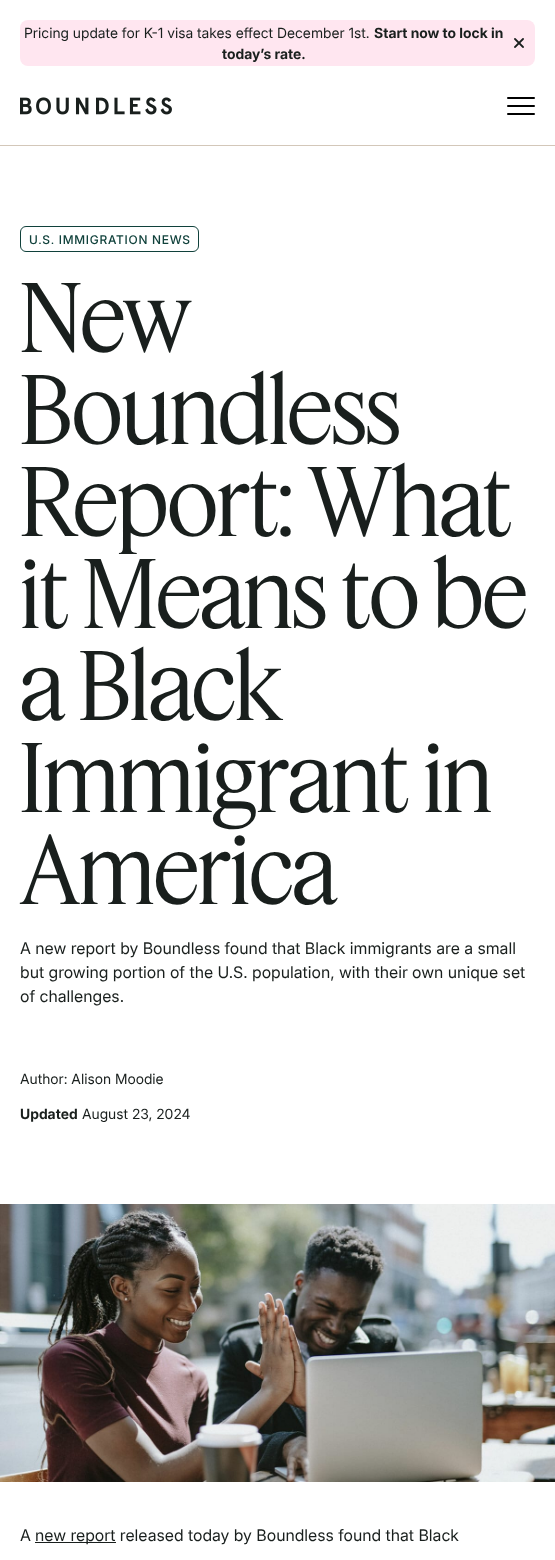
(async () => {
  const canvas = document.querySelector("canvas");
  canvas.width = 555;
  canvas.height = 1560;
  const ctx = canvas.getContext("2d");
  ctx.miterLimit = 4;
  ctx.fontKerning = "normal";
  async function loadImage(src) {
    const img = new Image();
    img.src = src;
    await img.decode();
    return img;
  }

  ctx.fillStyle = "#ffffff";
  ctx.fillRect(0, 0, 555, 1560);
  ctx.fillStyle = "#ffe6f0";
  ctx.beginPath();
  ctx.roundRect(20, 20, 515, 46, 8);
  ctx.fill();
  ctx.drawImage(await loadImage("img/1.png"), 514, 38, 10, 10);
  ctx.fillStyle = "#d3c7b9";
  ctx.fillRect(0, 145, 555, 1);
  ctx.drawImage(await loadImage("img/2.png"), 20, 97, 152, 18);
  ctx.fillStyle = "#000000";
  ctx.beginPath();
  ctx.roundRect(507, 97, 28, 2, 1);
  ctx.fill();
  ctx.beginPath();
  ctx.roundRect(507, 105, 28, 2, 1);
  ctx.fill();
  ctx.beginPath();
  ctx.roundRect(507, 113, 28, 2, 1);
  ctx.fill();
  ctx.beginPath();
  ctx.roundRect(20.5, 226.5, 178, 25, 5.5);
  ctx.strokeStyle = "#10413b";
  ctx.stroke();
  ctx.drawImage(await loadImage("img/3.png"), 0, 1204, 555, 278);
  ctx.fillStyle = "#191f1d";
  ctx.fillRect(35, 1542, 81, 1);
  ctx.font = "14px Inter";
  ctx.fillText("Pricing update for K-1 visa takes effect December 1st.", 24, 38);
  ctx.font = "bold 14px Inter";
  ctx.fillText("Start now to lock in", 374, 38);
  ctx.fillText("today’s rate.", 222, 59);
  ctx.letterSpacing = "0.75px";
  ctx.font = "500 12px Inter";
  ctx.fillStyle = "#10413b";
  ctx.fillText("U.S. IMMIGRATION NEWS", 29, 244);
  ctx.letterSpacing = "-0.9px";
  ctx.font = "92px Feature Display";
  ctx.fillStyle = "#191f1d";
  for (const [text, x, y] of [
    ["New", 20, 352],
    ["Boundless", 20, 444],
    ["Report: What", 20, 536],
    ["it Means to be", 20, 628],
    ["a Black", 20, 720],
    ["Immigrant in", 20, 812],
    ["America", 20, 904],
  ]) {
    ctx.fillText(text, x, y);
  }
  ctx.letterSpacing = "0px";
  ctx.font = "16px Inter";
  for (const [text, x, y] of [
    ["A new report by Boundless found that Black immigrants are a small", 20, 954],
    ["but growing portion of the U.S. population, with their own unique set", 20, 978],
    ["of challenges.", 20, 1002],
  ]) {
    ctx.fillText(text, x, y);
  }
  ctx.font = "14px Inter";
  ctx.fillText("Author: Alison Moodie", 20, 1084);
  ctx.font = "bold 14px Inter";
  ctx.fillText("Updated", 20, 1119);
  ctx.font = "14px Inter";
  ctx.fillText("August 23, 2024", 82, 1119);
  ctx.font = "16px Inter";
  ctx.fillText("A", 20, 1541);
  ctx.fillText("new report released today by Boundless found that Black", 35, 1541);
})();
